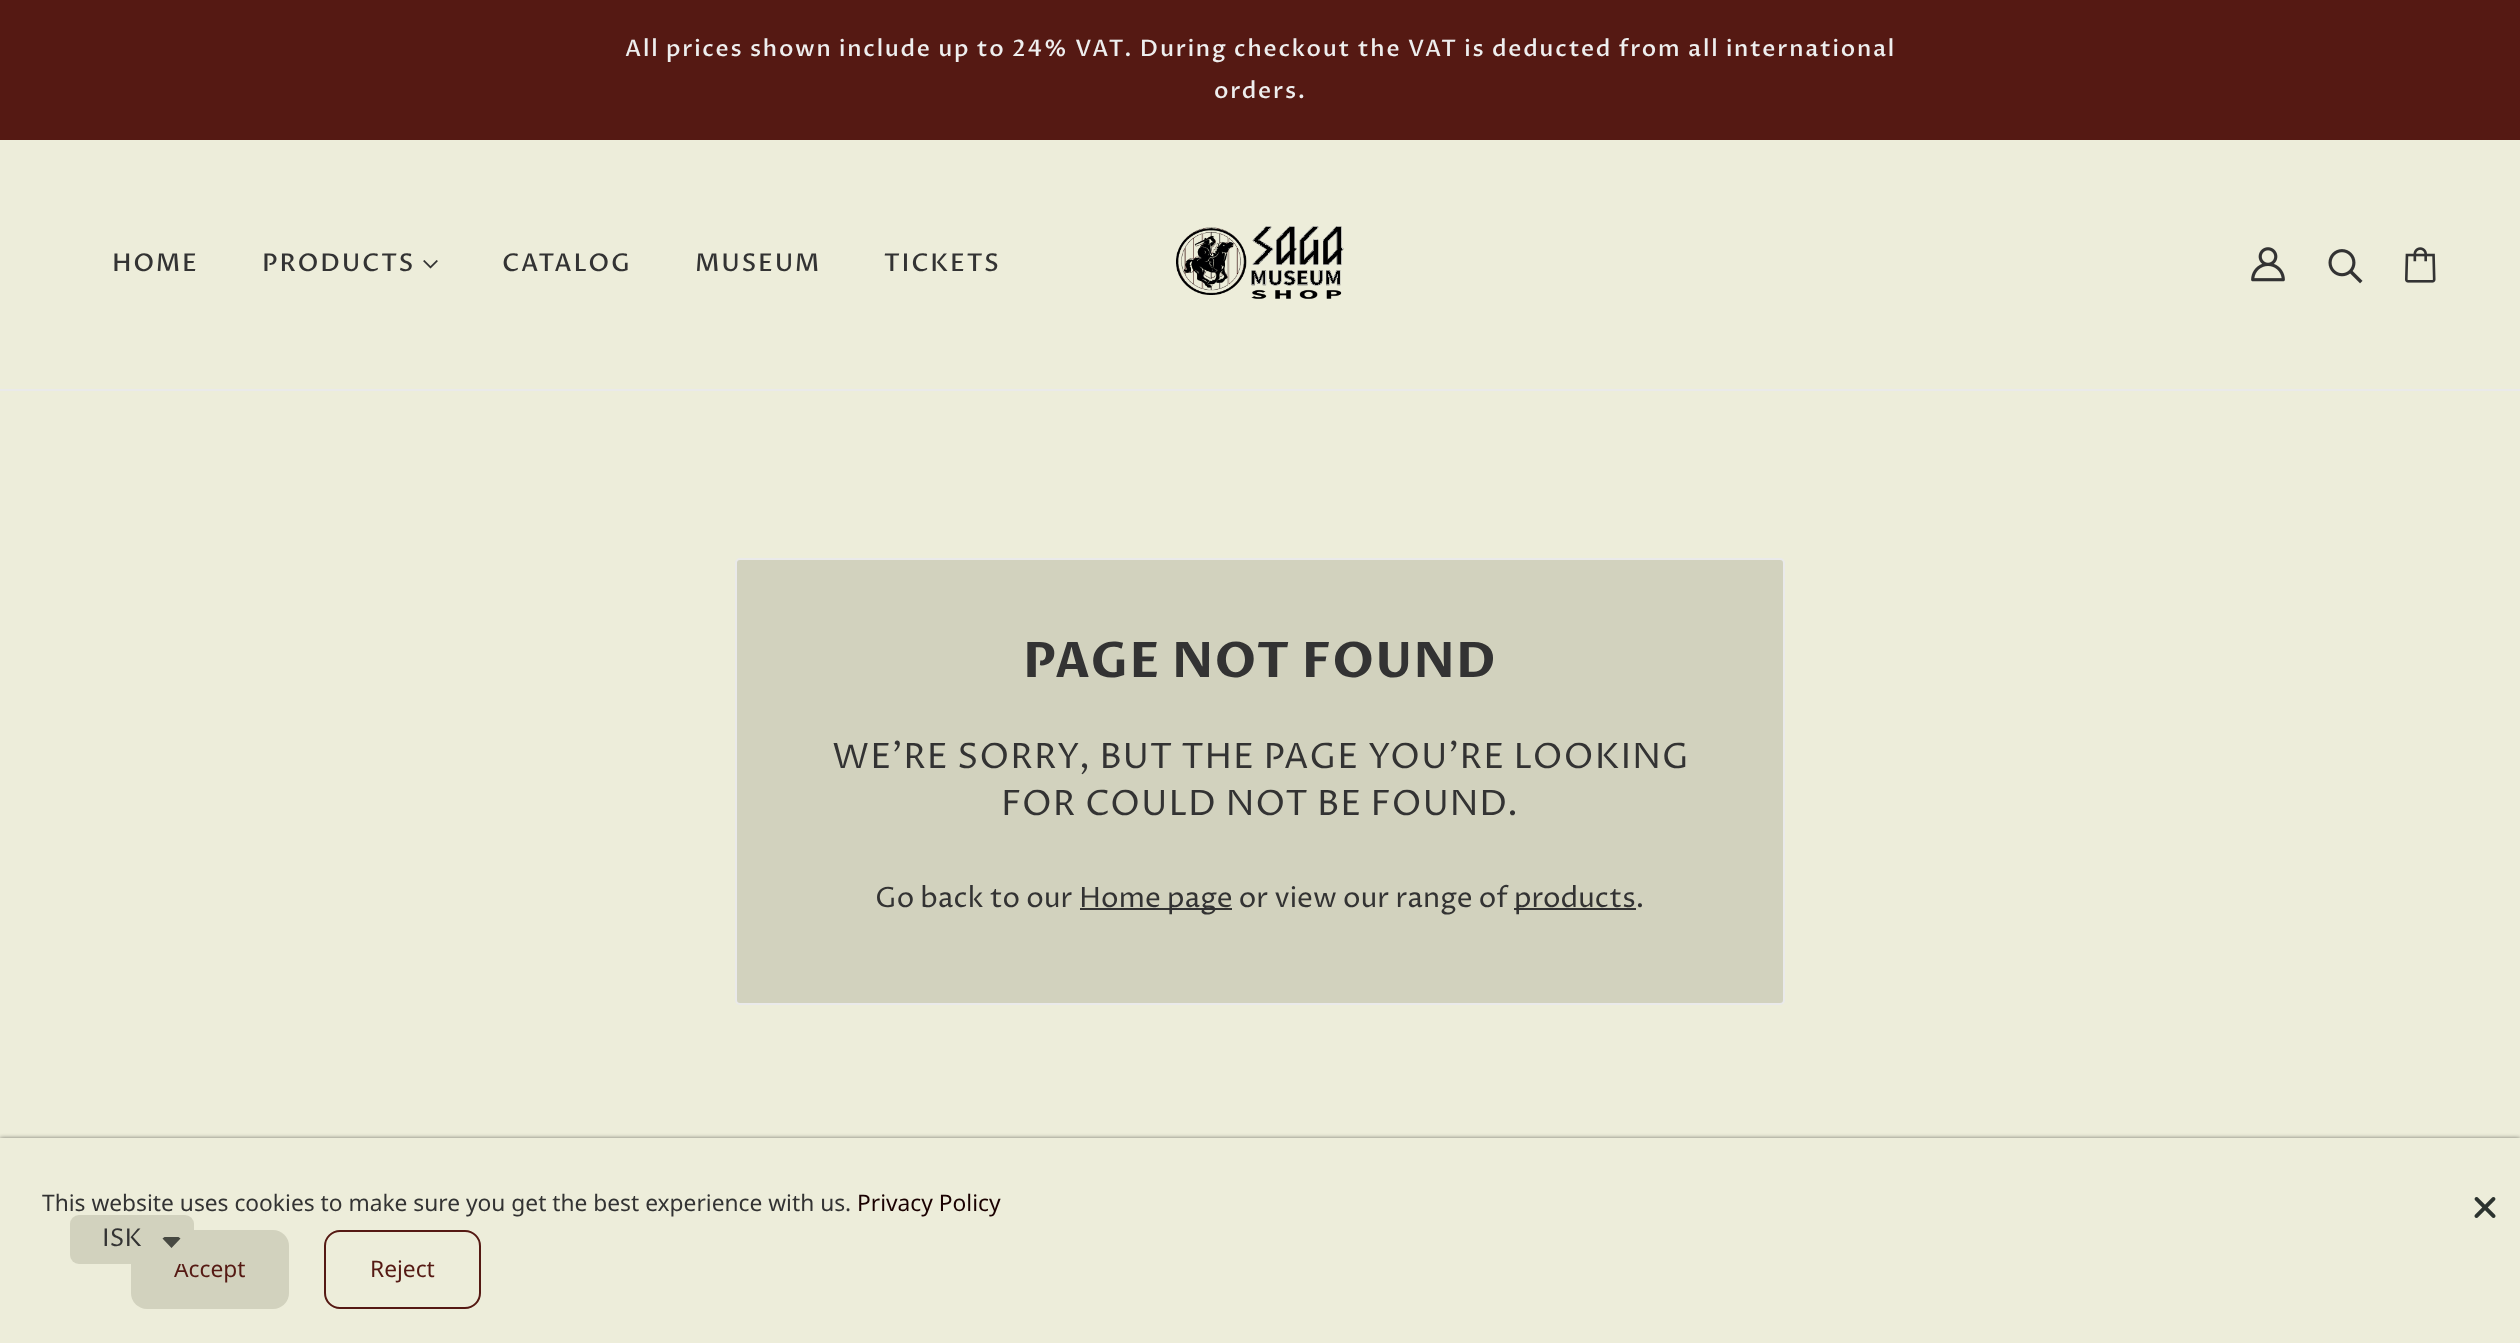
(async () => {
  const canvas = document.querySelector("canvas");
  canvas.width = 2520;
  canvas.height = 1343;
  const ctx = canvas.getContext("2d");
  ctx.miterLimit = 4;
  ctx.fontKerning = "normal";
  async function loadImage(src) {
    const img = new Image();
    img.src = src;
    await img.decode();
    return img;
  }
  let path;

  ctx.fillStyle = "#ededda";
  ctx.fillRect(0, 0, 2520, 1343);
  ctx.fillStyle = "#551913";
  ctx.fillRect(0, 0, 2520, 140);
  ctx.fillStyle = "#eaeaea";
  ctx.fillRect(0, 389, 2520, 2);
  ctx.drawImage(await loadImage("img/1.png"), 423, 260, 15, 9);
  ctx.drawImage(await loadImage("img/2.png"), 1176, 226, 168, 73);
  ctx.drawImage(await loadImage("img/3.png"), 2251, 247, 34, 35);
  ctx.drawImage(await loadImage("img/4.png"), 2328, 249, 35, 35);
  ctx.drawImage(await loadImage("img/5.png"), 2405, 247, 31, 36);
  ctx.fillStyle = "#d2d2be";
  ctx.beginPath();
  ctx.roundRect(736, 559, 1048, 445, 4);
  ctx.fill();
  ctx.strokeStyle = "#eaeaea";
  ctx.lineWidth = 2;
  ctx.stroke();
  ctx.fillStyle = "#333333";
  ctx.fillRect(1080, 908, 152, 2);
  ctx.fillRect(1514, 908, 122, 2);
  ctx.fillStyle = "rgba(0, 0, 0, 0.5)";
  ctx.filter = "blur(2px)";
  ctx.beginPath();
  ctx.rect(0, 1138, 2520, 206);
  ctx.fill();
  ctx.filter = "none";
  ctx.fillStyle = "#ededda";
  ctx.fillRect(0, 1138, 2520, 205);
  ctx.fillStyle = "#d2d2be";
  ctx.beginPath();
  ctx.roundRect(131, 1230, 158, 79, 16);
  ctx.fill();
  ctx.beginPath();
  ctx.roundRect(325, 1231, 155, 77, 15);
  ctx.strokeStyle = "#551913";
  ctx.stroke();
  ctx.drawImage(await loadImage("img/6.png"), 2474, 1197, 22, 21);
  ctx.letterSpacing = "1.75px";
  ctx.font = "500 22.75px Proza Libre";
  ctx.fillStyle = "#eeeeee";
  ctx.fillText("All prices shown include up to 24% VAT. During checkout the VAT is deducted from all international", 625, 56);
  ctx.fillText("orders.", 1214, 98);
  ctx.font = "500 24.5px Proza Libre";
  ctx.fillStyle = "#333333";
  for (const [text, x, y] of [
    ["HOME", 112, 271],
    ["PRODUCTS", 262, 271],
    ["CATALOG", 502, 271],
    ["MUSEUM", 695, 271],
    ["TICKETS", 884, 271],
  ]) {
    ctx.fillText(text, x, y);
  }
  ctx.letterSpacing = "1.25px";
  ctx.font = "bold 49px Proza Libre";
  ctx.fillText("PAGE NOT FOUND", 1023, 677);
  ctx.letterSpacing = "0.9px";
  ctx.font = "35px Proza Libre";
  ctx.fillText("WE'RE SORRY, BUT THE PAGE YOU'RE LOOKING", 832, 768);
  ctx.fillText("FOR COULD NOT BE FOUND.", 1001, 815);
  ctx.letterSpacing = "0px";
  ctx.font = "28px Proza Libre";
  for (const [text, x, y] of [
    ["Go back to our", 875, 907],
    ["Home page or view our range of", 1079, 907],
    ["products.", 1514, 907],
  ]) {
    ctx.fillText(text, x, y);
  }
  ctx.font = "22.75px Noto Sans";
  ctx.fillText("This website uses cookies to make sure you get the best experience with us.", 42, 1211);
  ctx.fillStyle = "#1a0000";
  ctx.fillText("Privacy Policy", 857, 1211);
  ctx.fillStyle = "#551913";
  ctx.fillText("Accept", 174, 1277);
  ctx.fillText("Reject", 370, 1277);
  ctx.fillStyle = "#d2d2be";
  ctx.beginPath();
  ctx.roundRect(70, 1215, 124, 49, 9);
  ctx.fill();
  ctx.font = "24.5px Proza Libre";
  ctx.fillStyle = "#333333";
  ctx.fillText("ISK", 102, 1246);
  ctx.fillStyle = "#474942";
  path = new Path2D("M162.5 1238.5C163 1238 164 1237.5 164.5 1237H178.5C179 1237.5 180 1238 180.5 1238.5L171.5 1248Z");
  ctx.fill(path);
})();
